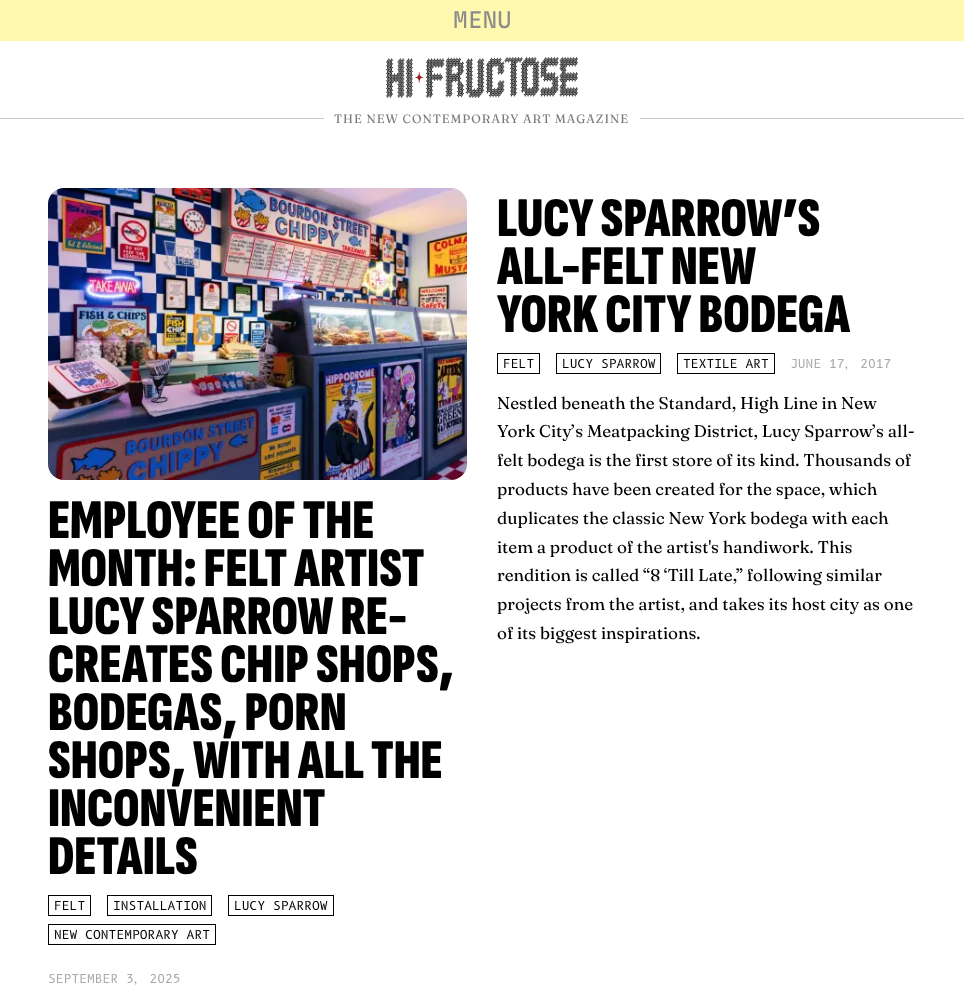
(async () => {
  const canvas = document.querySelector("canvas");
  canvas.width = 964;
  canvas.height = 1008;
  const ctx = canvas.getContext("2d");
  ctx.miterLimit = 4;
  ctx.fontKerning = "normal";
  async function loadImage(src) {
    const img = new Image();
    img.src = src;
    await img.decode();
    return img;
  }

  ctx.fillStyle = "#ffffff";
  ctx.fillRect(0, 0, 964, 1008);
  ctx.fillStyle = "#fff8af";
  ctx.fillRect(0, 0, 964, 41);
  ctx.drawImage(await loadImage("img/1.png"), 386, 57, 192, 41);
  ctx.fillStyle = "#cccccc";
  ctx.fillRect(0, 118, 324, 1);
  ctx.fillRect(640, 118, 324, 1);
  ctx.strokeStyle = "#000000";
  ctx.strokeRect(497.5, 353.5, 42, 20);
  ctx.strokeRect(556.5, 353.5, 104, 20);
  ctx.strokeRect(677.5, 353.5, 97, 20);
  ctx.drawImage(await loadImage("img/2.png"), 48, 188, 419, 292);
  ctx.strokeRect(48.5, 895.5, 42, 20);
  ctx.strokeRect(107.5, 895.5, 104, 20);
  ctx.strokeRect(228.5, 895.5, 105, 20);
  ctx.strokeRect(48.5, 924.5, 167, 20);
  ctx.font = "21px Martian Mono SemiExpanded";
  ctx.fillStyle = "#8c8c8c";
  ctx.fillText("MENU", 453, 28);
  ctx.letterSpacing = "1px";
  ctx.font = "12px Fraunces";
  ctx.fillStyle = "#7a7a7a";
  ctx.fillText("THE NEW CONTEMPORARY ART MAGAZINE", 334, 123);
  ctx.letterSpacing = "0px";
  ctx.font = "900 56px Sofia Sans Extra Condensed";
  ctx.fillStyle = "#000000";
  for (const [text, x, y] of [
    ["LUCY SPARROW’S", 497, 236],
    ["ALL-FELT NEW", 497, 284],
    ["YORK CITY BODEGA", 497, 332],
  ]) {
    ctx.fillText(text, x, y);
  }
  ctx.font = "12px 'B612 Mono'";
  for (const [text, x, y] of [
    ["FELT", 503, 368],
    ["LUCY SPARROW", 562, 368],
    ["TEXTILE ART", 683, 368],
  ]) {
    ctx.fillText(text, x, y);
  }
  ctx.fillStyle = "#aaaaaa";
  ctx.fillText("JUNE 17, 2017", 790, 368);
  ctx.font = "17px Fraunces";
  ctx.fillStyle = "#000000";
  for (const [text, x, y] of [
    ["Nestled beneath the Standard, High Line in New", 497, 409],
    ["York City’s Meatpacking District, Lucy Sparrow’s all-", 497, 437],
    ["felt bodega is the first store of its kind. Thousands of", 497, 466],
    ["products have been created for the space, which", 497, 495],
    ["duplicates the classic New York bodega with each", 497, 524],
    ["item a product of the artist's handiwork. This", 497, 553],
    ["rendition is called “8 ‘Till Late,” following similar", 497, 581],
    ["projects from the artist, and takes its host city as one", 497, 610],
    ["of its biggest inspirations.", 497, 639],
  ]) {
    ctx.fillText(text, x, y);
  }
  ctx.font = "900 56px Sofia Sans Extra Condensed";
  for (const [text, x, y] of [
    ["EMPLOYEE OF THE", 48, 538],
    ["MONTH: FELT ARTIST", 48, 586],
    ["LUCY SPARROW RE-", 48, 634],
    ["CREATES CHIP SHOPS,", 48, 682],
    ["BODEGAS, PORN", 48, 730],
    ["SHOPS, WITH ALL THE", 48, 778],
    ["INCONVENIENT", 48, 826],
    ["DETAILS", 48, 874],
  ]) {
    ctx.fillText(text, x, y);
  }
  ctx.font = "12px 'B612 Mono'";
  for (const [text, x, y] of [
    ["FELT", 54, 910],
    ["INSTALLATION", 113, 910],
    ["LUCY SPARROW", 234, 910],
    ["NEW CONTEMPORARY ART", 54, 939],
  ]) {
    ctx.fillText(text, x, y);
  }
  ctx.fillStyle = "#aaaaaa";
  ctx.fillText("SEPTEMBER 3, 2025", 48, 983);
})();
